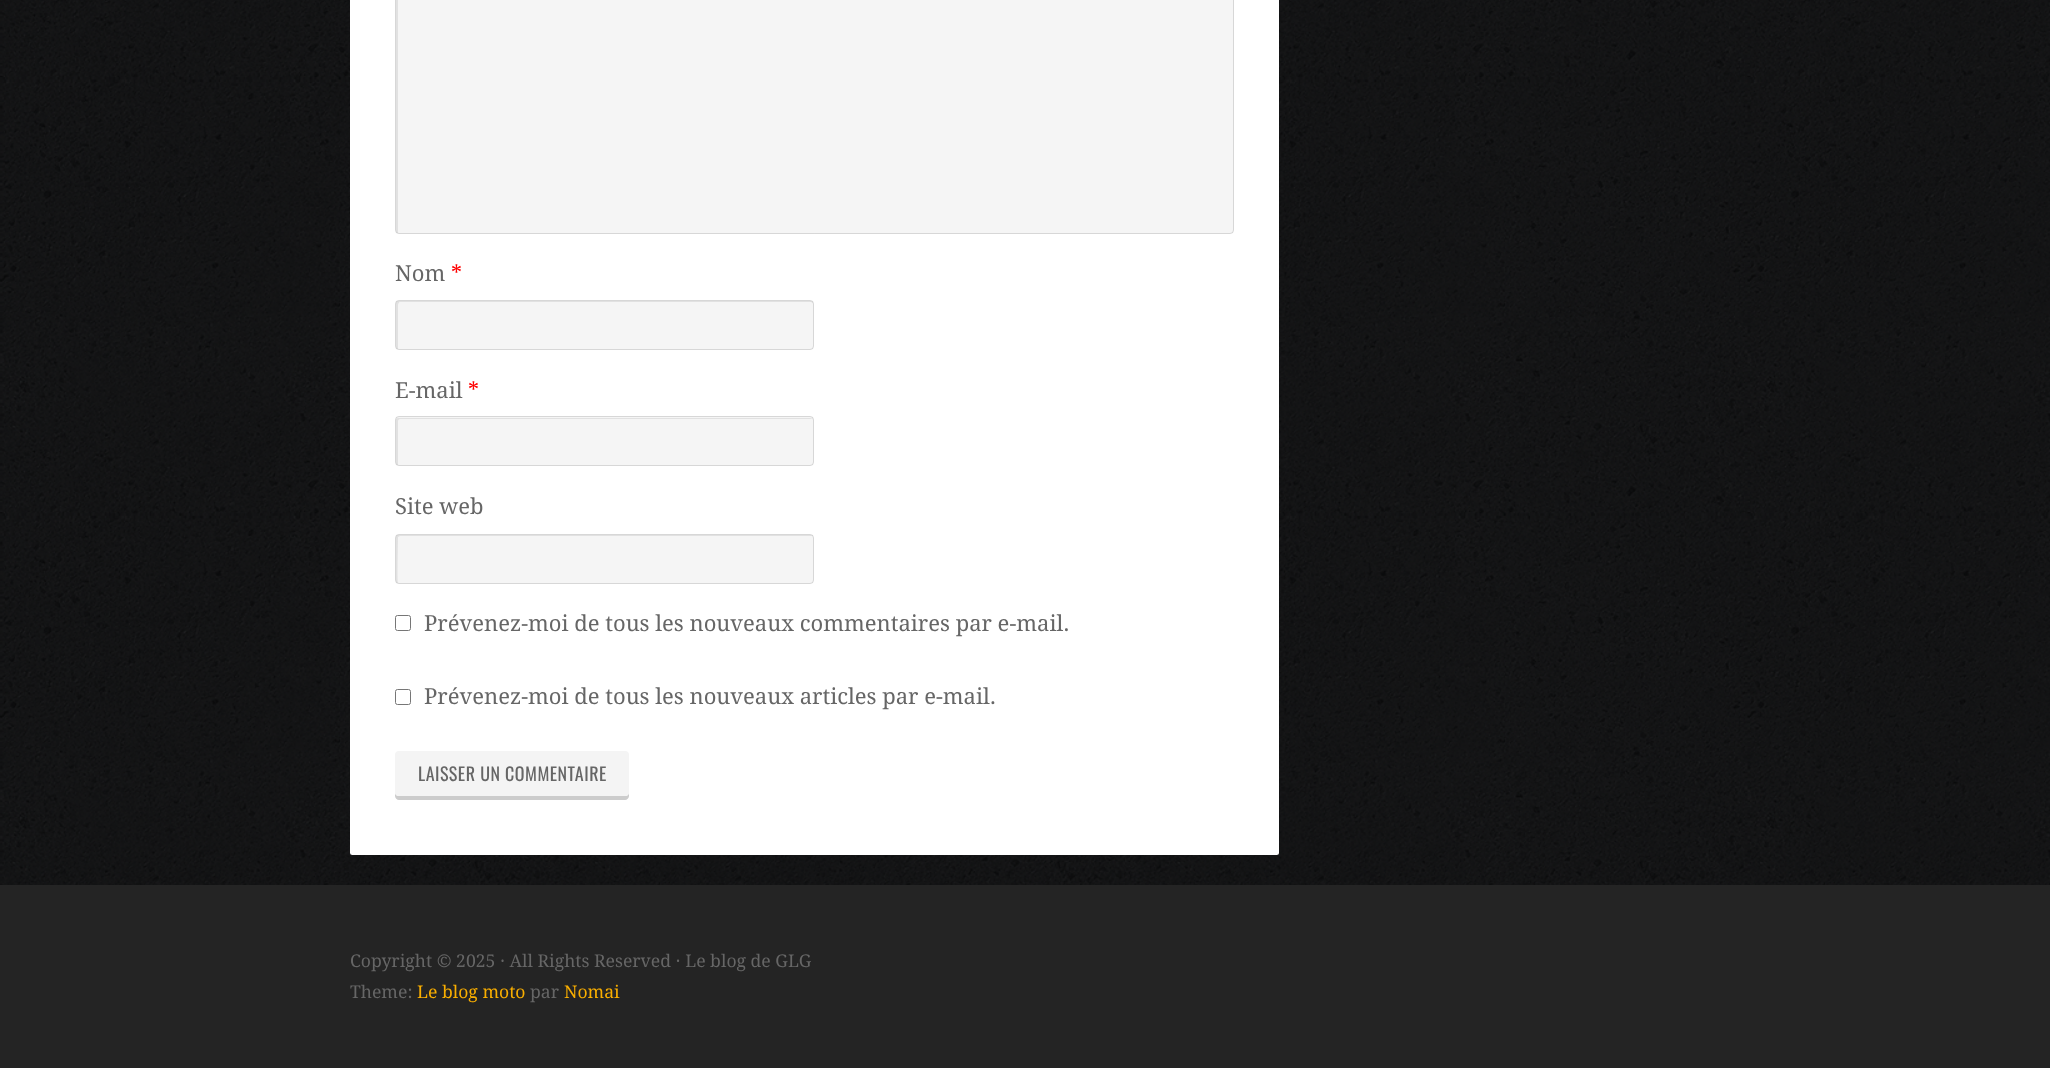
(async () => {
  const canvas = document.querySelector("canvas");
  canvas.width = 2050;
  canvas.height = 1068;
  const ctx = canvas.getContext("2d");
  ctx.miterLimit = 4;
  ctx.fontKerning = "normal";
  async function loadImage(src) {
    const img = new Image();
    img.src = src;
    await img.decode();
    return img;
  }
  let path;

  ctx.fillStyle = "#ffffff";
  ctx.fillRect(0, 0, 2050, 1068);
  ctx.drawImage(await loadImage("img/1.png"), 0, 0, 2050, 885);
  ctx.beginPath();
  ctx.roundRect(350, -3, 929, 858, 2.5);
  ctx.fill();
  ctx.fillStyle = "#f5f5f5";
  ctx.beginPath();
  ctx.roundRect(395, -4, 839, 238, 4);
  ctx.fill();
  ctx.fillStyle = "#e1e1e1";
  path = new Path2D("M400-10H1233C1232-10 1231-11 1230-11H398C397-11 396-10 396-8V230C396 232 397 233 398 233V231V-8C398-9 399-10 400-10Z");
  ctx.fill(path);
  ctx.beginPath();
  ctx.roundRect(395.5, -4.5, 838, 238, 3.5);
  ctx.strokeStyle = "rgba(0, 0, 0, 0.12)";
  ctx.stroke();
  ctx.fillStyle = "#f5f5f5";
  ctx.beginPath();
  ctx.roundRect(395, 300, 419, 50, 4);
  ctx.fill();
  ctx.fillStyle = "#e1e1e1";
  path = new Path2D("M400 302H811L813 303C813 302 812 301 810 301H398C397 301 396 302 396 304V346C396 348 397 349 398 349V305C398 304 399 302 400 302Z");
  ctx.fill(path);
  ctx.beginPath();
  ctx.roundRect(395.5, 300.5, 418, 49, 3.5);
  ctx.stroke();
  ctx.fillStyle = "#f5f5f5";
  ctx.beginPath();
  ctx.roundRect(395, 416, 419, 50, 4);
  ctx.fill();
  ctx.fillStyle = "#e1e1e1";
  path = new Path2D("M400 419H813C812 419 811 418 810 418H398C397 418 396 419 396 420V462C396 464 397 465 398 465V421C398 420 399 419 400 419Z");
  ctx.fill(path);
  ctx.beginPath();
  ctx.roundRect(395.5, 416.5, 418, 49, 3.5);
  ctx.stroke();
  ctx.fillStyle = "#f5f5f5";
  ctx.beginPath();
  ctx.roundRect(395, 534, 419, 50, 4);
  ctx.fill();
  ctx.fillStyle = "#e1e1e1";
  path = new Path2D("M400 536H811H813C812 536 811 535 810 535H398C397 535 396 536 396 538V580C396 582 397 583 398 583C397 581 398 539 398 537Z");
  ctx.fill(path);
  ctx.beginPath();
  ctx.roundRect(395.5, 534.5, 418, 49, 3.5);
  ctx.stroke();
  ctx.beginPath();
  ctx.roundRect(395.5, 615.5, 15, 15, 2);
  ctx.strokeStyle = "#767676";
  ctx.stroke();
  ctx.beginPath();
  ctx.roundRect(395.5, 689.5, 15, 15, 2);
  ctx.stroke();
  ctx.fillStyle = "#cccccc";
  path = new Path2D("M395 792V796C395 798 397 800 399 800H625C627 800 629 798 629 796V758V792C629 795 627 796 625 796H399C397 796 395 795 395 792Z");
  ctx.fill(path);
  ctx.fillStyle = "#f4f4f4";
  ctx.beginPath();
  ctx.roundRect(395, 751, 234, 45, 4);
  ctx.fill();
  ctx.fillStyle = "#242424";
  ctx.fillRect(0, 885, 2050, 183);
  ctx.font = "22px Droid Serif";
  ctx.fillStyle = "#666666";
  ctx.fillText("Nom", 395, 281);
  ctx.fillStyle = "#ff0000";
  ctx.fillText("*", 451, 281);
  ctx.fillStyle = "#666666";
  ctx.fillText("E-mail", 395, 398);
  ctx.fillStyle = "#ff0000";
  ctx.fillText("*", 468, 398);
  ctx.fillStyle = "#666666";
  for (const [text, x, y] of [
    ["Site web", 395, 514],
    ["Prévenez-moi de tous les nouveaux commentaires par e-mail.", 424, 631],
    ["Prévenez-moi de tous les nouveaux articles par e-mail.", 424, 704],
  ]) {
    ctx.fillText(text, x, y);
  }
  ctx.letterSpacing = "0.5px";
  ctx.font = "18px Oswald";
  ctx.fillText("LAISSER UN COMMENTAIRE", 418, 781);
  ctx.letterSpacing = "0px";
  ctx.font = "17.6px Droid Serif";
  ctx.fillText("Copyright © 2025 · All Rights Reserved · Le blog de GLG", 350, 967);
  ctx.fillText("Theme:", 350, 998);
  ctx.fillStyle = "#f9ae00";
  ctx.fillText("Le blog moto", 417, 998);
  ctx.fillStyle = "#666666";
  ctx.fillText("par", 530, 998);
  ctx.fillStyle = "#f9ae00";
  ctx.fillText("Nomai", 564, 998);
})();
